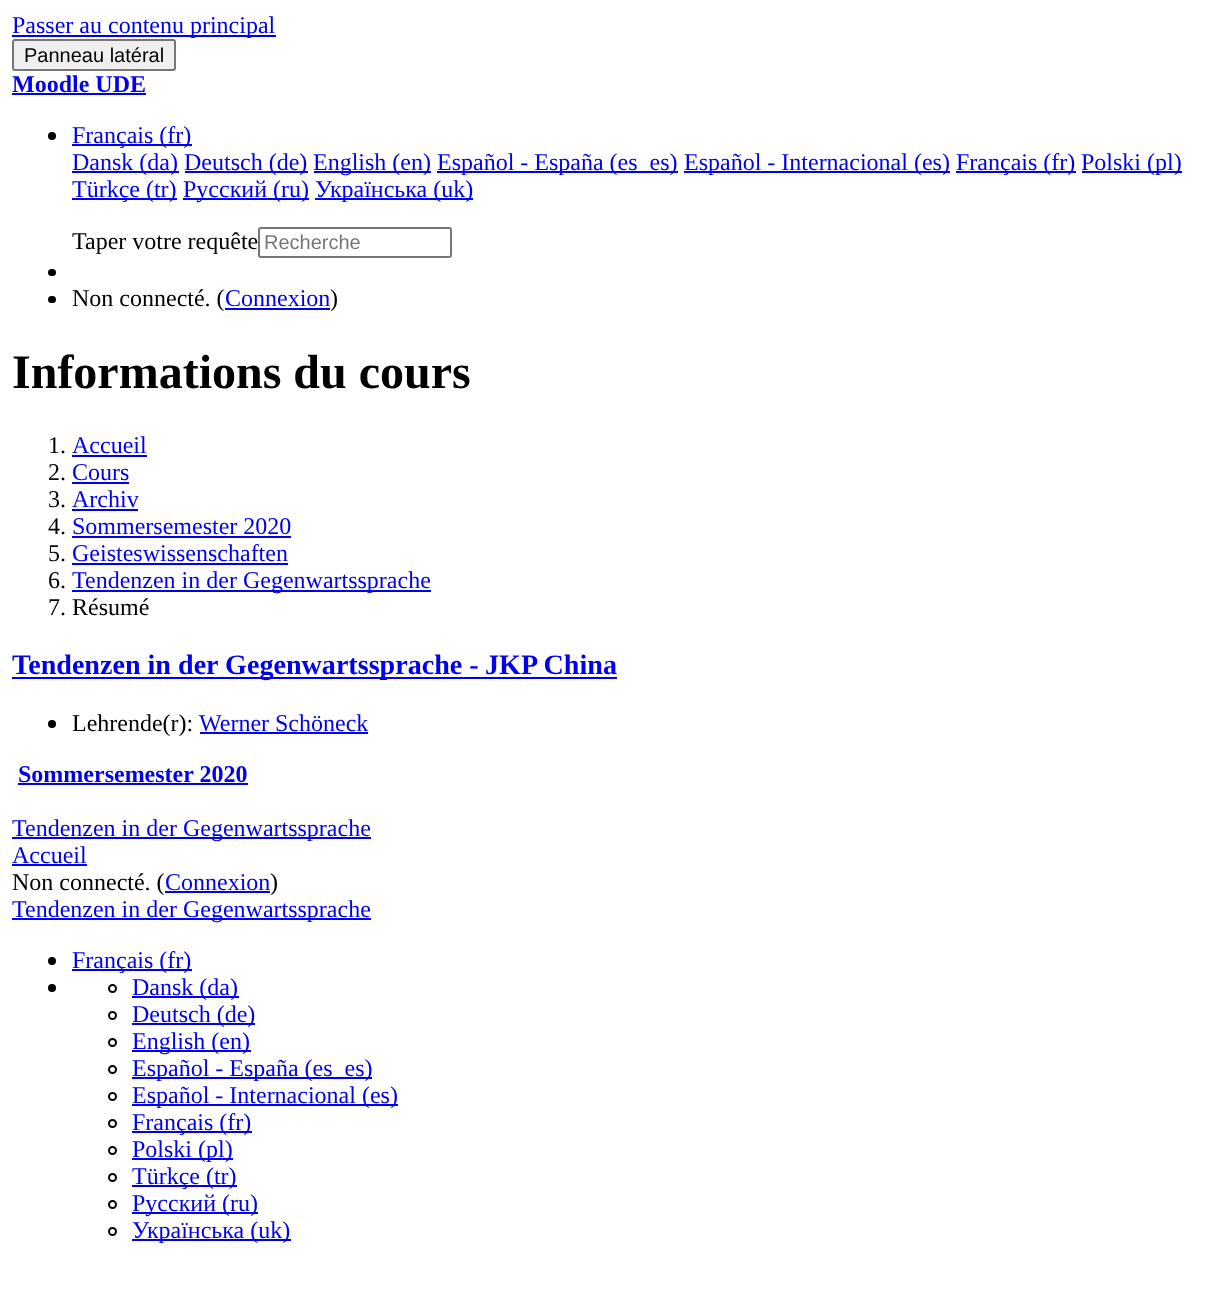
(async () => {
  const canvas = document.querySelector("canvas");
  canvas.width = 1207;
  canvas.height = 1293;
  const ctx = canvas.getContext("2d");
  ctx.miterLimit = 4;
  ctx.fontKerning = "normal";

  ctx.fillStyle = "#ffffff";
  ctx.fillRect(0, 0, 1207, 1293);
  ctx.fillStyle = "#0000ee";
  ctx.fillRect(12, 35, 264, 2);
  ctx.fillStyle = "#efefef";
  ctx.beginPath();
  ctx.roundRect(13, 40, 162, 30, 2);
  ctx.fill();
  ctx.strokeStyle = "#767676";
  ctx.lineWidth = 2;
  ctx.stroke();
  ctx.fillStyle = "#0000ee";
  ctx.fillRect(12, 93, 134, 2);
  ctx.fillStyle = "#000000";
  ctx.beginPath();
  ctx.arc(52, 136, 4, 0, Math.PI * 2);
  ctx.fill();
  for (const [x, y, w, h, color] of [
    [72, 144, 120, 2, "#0000ee"],
    [72, 171, 107, 2, "#0000ee"],
    [185, 171, 123, 2, "#0000ee"],
    [314, 171, 117, 2, "#0000ee"],
    [437, 171, 241, 2, "#0000ee"],
    [684, 171, 266, 2, "#0000ee"],
    [956, 171, 120, 2, "#0000ee"],
    [1082, 171, 100, 2, "#0000ee"],
    [72, 198, 105, 2, "#0000ee"],
    [183, 198, 126, 2, "#0000ee"],
    [315, 198, 158, 2, "#0000ee"],
  ]) {
    ctx.fillStyle = color;
    ctx.fillRect(x, y, w, h);
  }
  ctx.beginPath();
  ctx.roundRect(259, 228, 192, 29, 2);
  ctx.stroke();
  ctx.fillStyle = "#000000";
  ctx.beginPath();
  ctx.roundRect(48, 269, 8, 7, 3.5);
  ctx.fill();
  ctx.beginPath();
  ctx.roundRect(48, 296, 8, 7, 3.5);
  ctx.fill();
  for (const [x, y, w, h, color] of [
    [225, 308, 105, 2, "#0000ee"],
    [72, 455, 75, 2, "#0000ee"],
    [72, 482, 57, 2, "#0000ee"],
    [72, 509, 66, 2, "#0000ee"],
    [72, 536, 219, 2, "#0000ee"],
    [72, 563, 216, 2, "#0000ee"],
    [72, 590, 359, 2, "#0000ee"],
    [12, 677, 605, 2, "#0000ee"],
  ]) {
    ctx.fillStyle = color;
    ctx.fillRect(x, y, w, h);
  }
  ctx.fillStyle = "#000000";
  ctx.beginPath();
  ctx.arc(52, 724, 4, 0, Math.PI * 2);
  ctx.fill();
  for (const [x, y, w, h, color] of [
    [200, 732, 168, 2, "#0000ee"],
    [18, 783, 230, 2, "#0000ee"],
    [12, 837, 359, 2, "#0000ee"],
    [12, 864, 75, 2, "#0000ee"],
    [165, 891, 105, 2, "#0000ee"],
    [12, 918, 359, 2, "#0000ee"],
  ]) {
    ctx.fillStyle = color;
    ctx.fillRect(x, y, w, h);
  }
  ctx.fillStyle = "#000000";
  ctx.beginPath();
  ctx.arc(52, 961, 4, 0, Math.PI * 2);
  ctx.fill();
  ctx.fillStyle = "#0000ee";
  ctx.fillRect(72, 969, 120, 2);
  ctx.fillStyle = "#000000";
  ctx.beginPath();
  ctx.arc(52, 988, 4, 0, Math.PI * 2);
  ctx.fill();
  ctx.beginPath();
  ctx.arc(112.5, 988.5, 3.5, 0, Math.PI * 2);
  ctx.strokeStyle = "#000000";
  ctx.stroke();
  ctx.fillStyle = "#0000ee";
  ctx.fillRect(132, 996, 107, 2);
  ctx.beginPath();
  ctx.arc(112.5, 1015.5, 3.5, 0, Math.PI * 2);
  ctx.stroke();
  ctx.fillRect(132, 1023, 123, 2);
  ctx.beginPath();
  ctx.arc(112.5, 1042.5, 3.5, 0, Math.PI * 2);
  ctx.stroke();
  ctx.fillRect(132, 1050, 119, 2);
  ctx.beginPath();
  ctx.arc(112.5, 1069.5, 3.5, 0, Math.PI * 2);
  ctx.stroke();
  ctx.fillRect(132, 1077, 240, 2);
  ctx.beginPath();
  ctx.arc(112.5, 1096.5, 3.5, 0, Math.PI * 2);
  ctx.stroke();
  ctx.fillRect(132, 1104, 266, 2);
  ctx.beginPath();
  ctx.arc(112.5, 1123.5, 3.5, 0, Math.PI * 2);
  ctx.stroke();
  ctx.fillRect(132, 1131, 120, 2);
  ctx.beginPath();
  ctx.arc(112.5, 1150.5, 3.5, 0, Math.PI * 2);
  ctx.stroke();
  ctx.fillRect(132, 1158, 101, 2);
  ctx.beginPath();
  ctx.arc(112.5, 1177.5, 3.5, 0, Math.PI * 2);
  ctx.stroke();
  ctx.fillRect(132, 1185, 105, 2);
  ctx.beginPath();
  ctx.arc(112.5, 1204.5, 3.5, 0, Math.PI * 2);
  ctx.stroke();
  ctx.fillRect(132, 1212, 126, 2);
  ctx.beginPath();
  ctx.arc(112.5, 1231.5, 3.5, 0, Math.PI * 2);
  ctx.stroke();
  ctx.fillRect(132, 1239, 159, 2);
  ctx.font = "24px Liberation Serif";
  ctx.fillText("Passer au contenu principal", 12, 33);
  ctx.font = "20px Liberation Sans";
  ctx.fillStyle = "#000000";
  ctx.fillText("Panneau latéral", 24, 62);
  ctx.font = "bold 24px Liberation Serif";
  ctx.fillStyle = "#0000ee";
  ctx.fillText("Moodle UDE", 12, 92);
  ctx.font = "24px Liberation Serif";
  for (const [text, x, y] of [
    ["Français (fr)", 72, 143],
    ["Dansk (da)", 72, 170],
    ["Deutsch (de)", 184, 170],
    ["English (en)", 313, 170],
    ["Español - España (es_es)", 437, 170],
    ["Español - Internacional (es)", 684, 170],
    ["Français (fr)", 956, 170],
    ["Polski (pl)", 1081, 170],
    ["Türkçe (tr)", 72, 197],
    ["Русский (ru)", 183, 197],
    ["Українська (uk)", 315, 197],
  ]) {
    ctx.fillText(text, x, y);
  }
  ctx.fillStyle = "#000000";
  ctx.fillText("Taper votre requête", 72, 249);
  ctx.font = "20px Liberation Sans";
  ctx.fillStyle = "#757575";
  ctx.fillText("Recherche", 264, 249);
  ctx.font = "24px Liberation Serif";
  ctx.fillStyle = "#000000";
  ctx.fillText("Non connecté. (", 72, 306);
  ctx.fillStyle = "#0000ee";
  ctx.fillText("Connexion", 225, 306);
  ctx.fillStyle = "#000000";
  ctx.fillText(")", 330, 306);
  ctx.font = "bold 48px Liberation Serif";
  ctx.fillText("Informations du cours", 12, 388);
  ctx.font = "24px Liberation Serif";
  ctx.fillText("1.", 48, 453);
  ctx.fillStyle = "#0000ee";
  ctx.fillText("Accueil", 72, 453);
  ctx.fillStyle = "#000000";
  ctx.fillText("2.", 48, 480);
  ctx.fillStyle = "#0000ee";
  ctx.fillText("Cours", 72, 480);
  ctx.fillStyle = "#000000";
  ctx.fillText("3.", 48, 507);
  ctx.fillStyle = "#0000ee";
  ctx.fillText("Archiv", 72, 507);
  ctx.fillStyle = "#000000";
  ctx.fillText("4.", 48, 534);
  ctx.fillStyle = "#0000ee";
  ctx.fillText("Sommersemester 2020", 72, 534);
  ctx.fillStyle = "#000000";
  ctx.fillText("5.", 48, 561);
  ctx.fillStyle = "#0000ee";
  ctx.fillText("Geisteswissenschaften", 72, 561);
  ctx.fillStyle = "#000000";
  ctx.fillText("6.", 48, 588);
  ctx.fillStyle = "#0000ee";
  ctx.fillText("Tendenzen in der Gegenwartssprache", 72, 588);
  ctx.fillStyle = "#000000";
  ctx.fillText("7. Résumé", 48, 615);
  ctx.font = "bold 28.1px Liberation Serif";
  ctx.fillStyle = "#0000ee";
  ctx.fillText("Tendenzen in der Gegenwartssprache -", 12, 674);
  ctx.fillText("JKP China", 485, 674);
  ctx.font = "24px Liberation Serif";
  ctx.fillStyle = "#000000";
  ctx.fillText("Lehrende(r):", 72, 731);
  ctx.fillStyle = "#0000ee";
  ctx.fillText("Werner Schöneck", 199, 731);
  ctx.font = "bold 24px Liberation Serif";
  ctx.fillText("Sommersemester 2020", 18, 782);
  ctx.font = "24px Liberation Serif";
  ctx.fillText("Tendenzen in der Gegenwartssprache", 12, 836);
  ctx.fillText("Accueil", 12, 863);
  ctx.fillStyle = "#000000";
  ctx.fillText("Non connecté. (", 12, 890);
  ctx.fillStyle = "#0000ee";
  ctx.fillText("Connexion", 165, 890);
  ctx.fillStyle = "#000000";
  ctx.fillText(")", 270, 890);
  ctx.fillStyle = "#0000ee";
  for (const [text, x, y] of [
    ["Tendenzen in der Gegenwartssprache", 12, 917],
    ["Français (fr)", 72, 968],
    ["Dansk (da)", 132, 995],
    ["Deutsch (de)", 132, 1022],
    ["English (en)", 132, 1049],
    ["Español - España (es_es)", 132, 1076],
    ["Español - Internacional (es)", 132, 1103],
    ["Français (fr)", 132, 1130],
    ["Polski (pl)", 132, 1157],
    ["Türkçe (tr)", 132, 1184],
    ["Русский (ru)", 132, 1211],
    ["Українська (uk)", 132, 1238],
  ]) {
    ctx.fillText(text, x, y);
  }
})();
